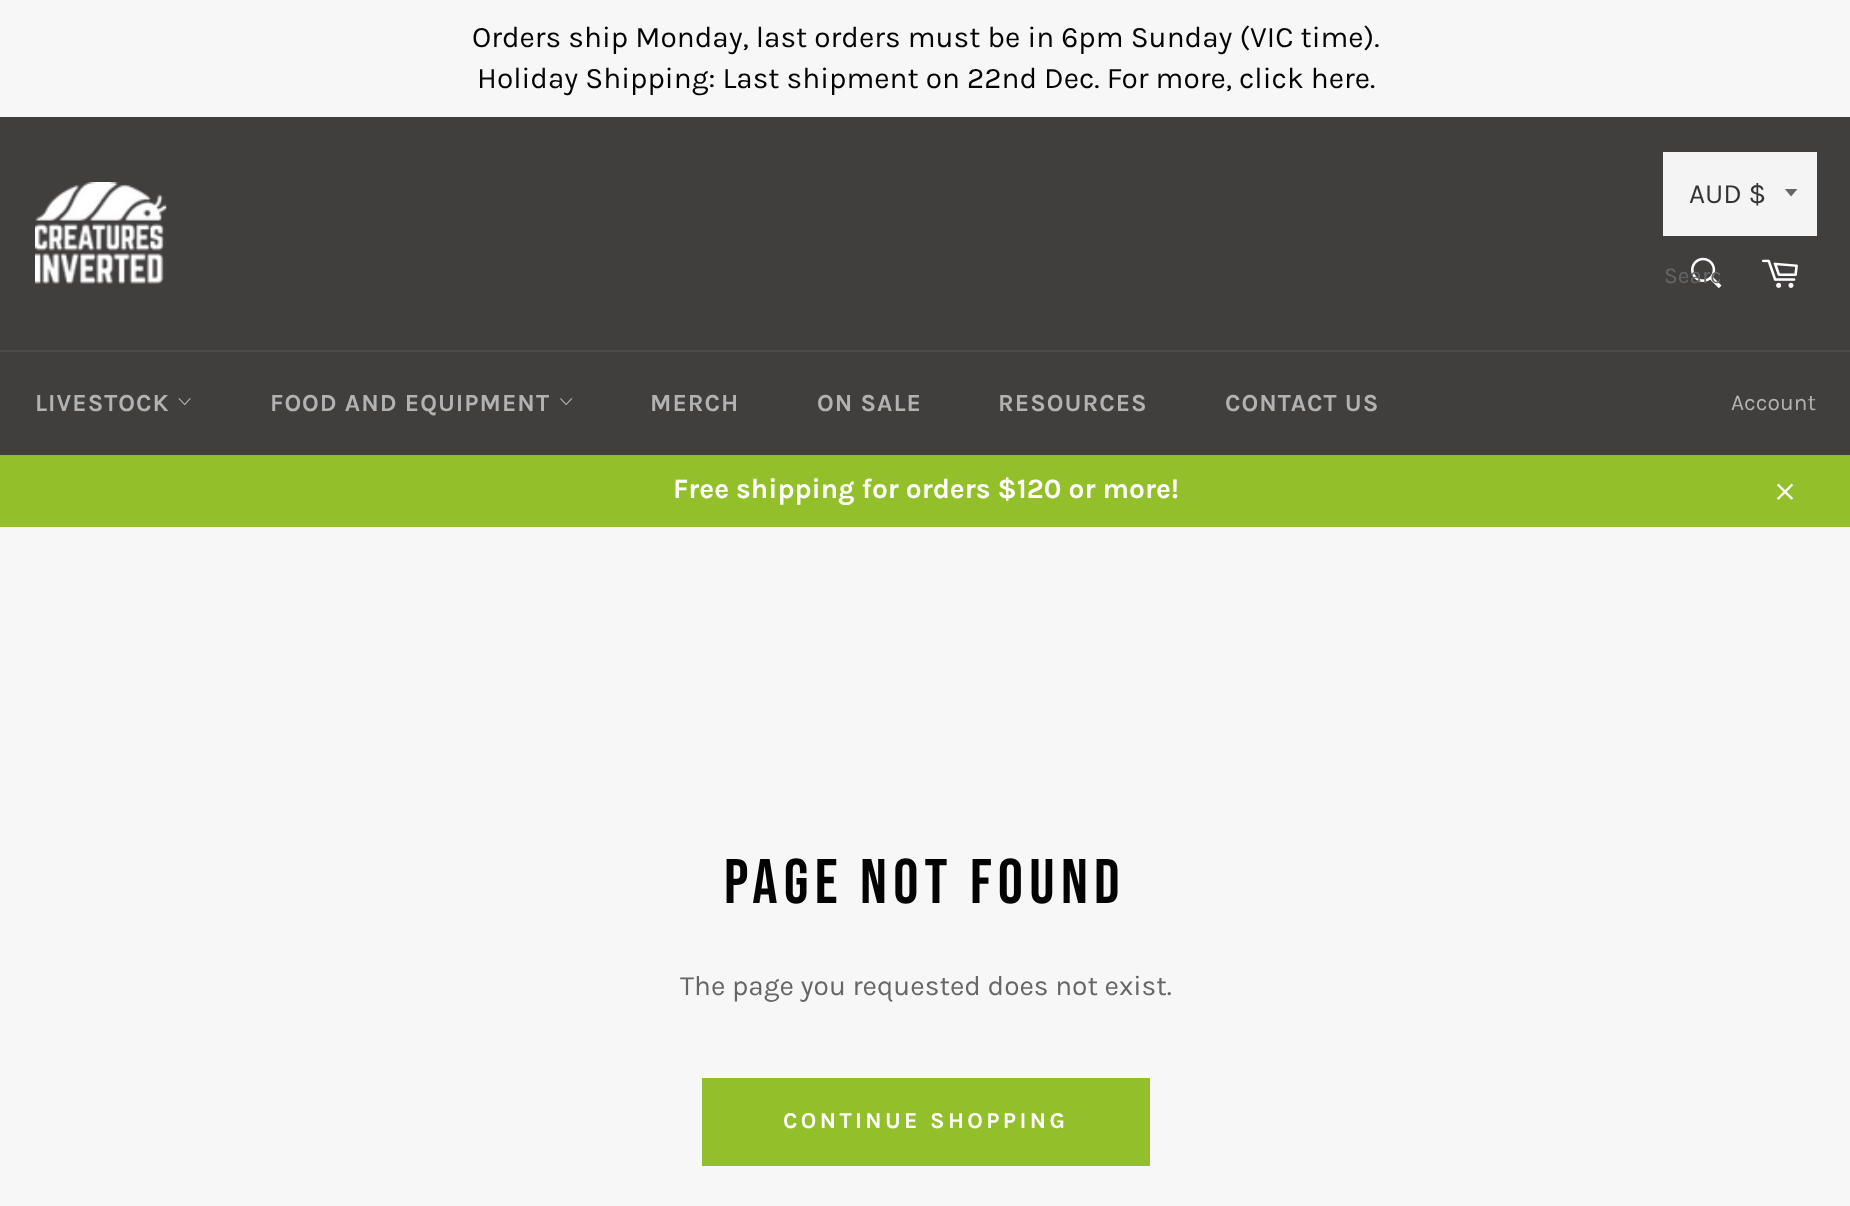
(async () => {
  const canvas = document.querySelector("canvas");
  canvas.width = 1850;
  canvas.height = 1206;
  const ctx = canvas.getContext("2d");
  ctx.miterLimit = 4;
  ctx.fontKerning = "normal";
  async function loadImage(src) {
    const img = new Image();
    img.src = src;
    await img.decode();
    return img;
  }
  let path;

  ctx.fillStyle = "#f7f7f7";
  ctx.fillRect(0, 0, 1850, 1206);
  ctx.fillStyle = "#413e3e";
  ctx.fillRect(0, 117, 1850, 233);
  ctx.drawImage(await loadImage("img/1.png"), 35, 182, 132, 102);
  ctx.fillStyle = "#f4f4f4";
  ctx.fillRect(1663, 152, 154, 84);
  ctx.fillStyle = "#666666";
  path = new Path2D("M1785 189L1791 196.5L1797.5 189Z");
  ctx.fill(path);
  ctx.drawImage(await loadImage("img/2.png"), 1691, 257, 31, 32);
  ctx.drawImage(await loadImage("img/3.png"), 1762, 259, 36, 29);
  ctx.fillStyle = "#413e3e";
  ctx.fillRect(0, 352, 1850, 103);
  ctx.fillStyle = "#4e4a4a";
  ctx.fillRect(0, 350, 1850, 2);
  ctx.drawImage(await loadImage("img/4.png"), 178, 398, 13, 8);
  ctx.drawImage(await loadImage("img/5.png"), 560, 398, 13, 8);
  ctx.fillStyle = "#93bf2a";
  ctx.fillRect(0, 455, 1850, 72);
  ctx.drawImage(await loadImage("img/6.png"), 1776, 483, 18, 17);
  ctx.fillRect(702, 1078, 448, 88);
  ctx.font = "29.75px Karla";
  ctx.fillStyle = "#030303";
  ctx.fillText("Orders ship Monday, last orders must be in 6pm Sunday (VIC time).", 472, 47);
  ctx.fillText("Holiday Shipping: Last shipment on 22nd Dec. For more, click here.", 477, 88);
  ctx.font = "28px Karla";
  ctx.fillStyle = "#333333";
  ctx.fillText("AUD $", 1689, 203);
  ctx.save();
  ctx.beginPath();
  ctx.rect(1664, 263, 56, 26);
  ctx.clip();
  ctx.font = "22.75px Karla";
  ctx.fillStyle = "#666666";
  ctx.fillText("Searc", 1664, 283);
  ctx.restore();
  ctx.letterSpacing = "1px";
  ctx.font = "bold 24.5px Karla";
  ctx.fillStyle = "#b3b2b2";
  for (const [text, x, y] of [
    ["LIVESTOCK", 35, 411],
    ["FOOD AND EQUIPMENT", 270, 411],
    ["MERCH", 650, 411],
    ["ON SALE", 817, 411],
    ["RESOURCES", 998, 411],
    ["CONTACT US", 1225, 411],
  ]) {
    ctx.fillText(text, x, y);
  }
  ctx.letterSpacing = "0px";
  ctx.font = "22.75px Karla";
  ctx.fillText("Account", 1731, 410);
  ctx.font = "bold 28px Karla";
  ctx.fillStyle = "#ffffff";
  ctx.fillText("Free shipping for orders $120 or more!", 673, 498);
  ctx.letterSpacing = "6.25px";
  ctx.font = "63px Bebas Neue";
  ctx.fillStyle = "#030303";
  ctx.fillText("PAGE NOT FOUND", 724, 903);
  ctx.letterSpacing = "0px";
  ctx.font = "28px Karla";
  ctx.fillStyle = "#666666";
  ctx.fillText("The page you requested does not exist.", 680, 995);
  ctx.letterSpacing = "3.4px";
  ctx.font = "bold 22.75px Karla";
  ctx.fillStyle = "#ffffff";
  ctx.fillText("CONTINUE SHOPPING", 783, 1128);
})();
